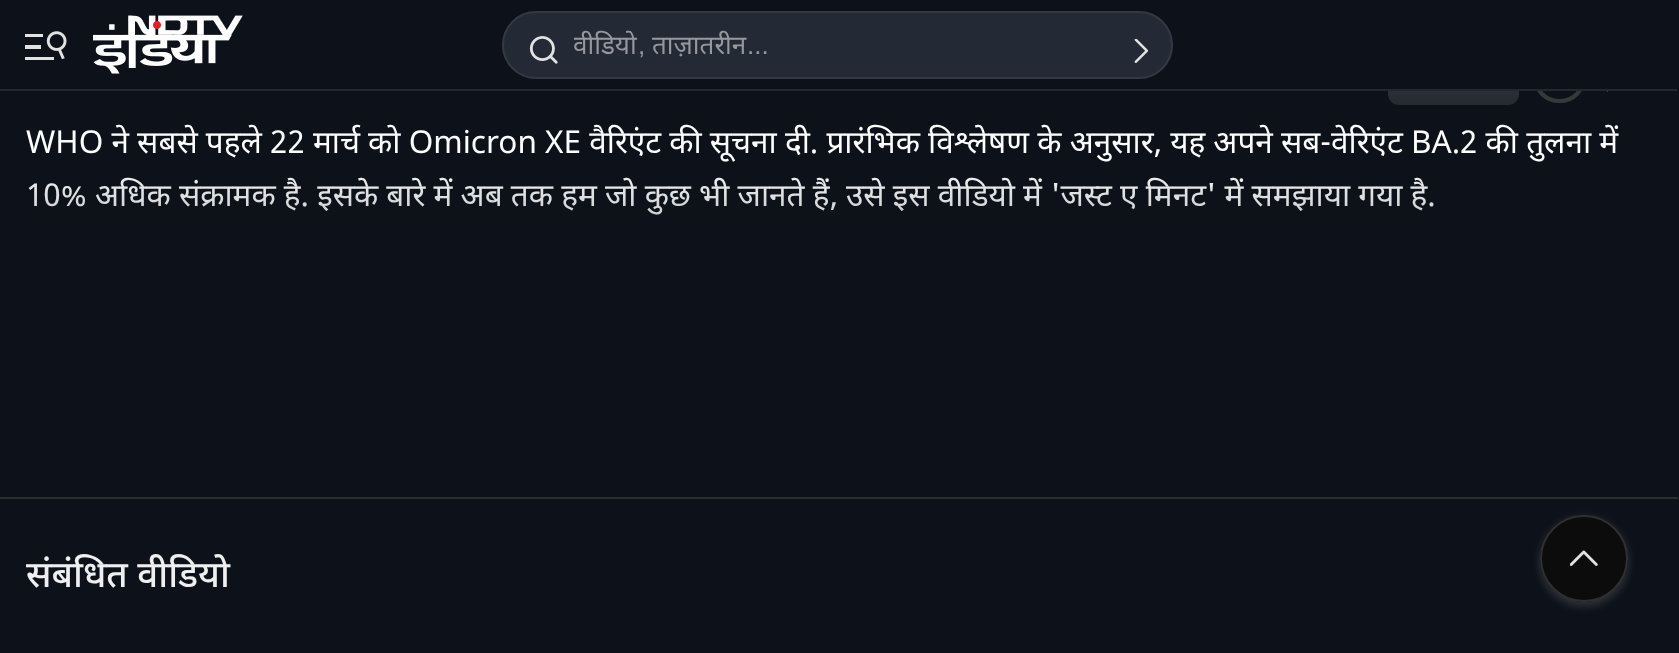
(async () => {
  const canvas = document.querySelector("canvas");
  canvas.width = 1679;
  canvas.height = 653;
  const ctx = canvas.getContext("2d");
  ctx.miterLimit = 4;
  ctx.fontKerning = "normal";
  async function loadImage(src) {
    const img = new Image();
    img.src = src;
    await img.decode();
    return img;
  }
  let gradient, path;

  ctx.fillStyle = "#0d121a";
  ctx.fillRect(0, 0, 1679, 653);
  gradient = ctx.createLinearGradient(1453, 105, 1453, 47);
  gradient.addColorStop(0, "#242a30");
  gradient.addColorStop(1, "#3a4249");
  ctx.fillStyle = gradient;
  ctx.beginPath();
  ctx.roundRect(1388, 47, 131, 58, 11);
  ctx.fill();
  ctx.beginPath();
  ctx.roundRect(1535, 53, 49, 48, 24);
  ctx.strokeStyle = "#353939";
  ctx.lineWidth = 4;
  ctx.stroke();
  ctx.fillStyle = "#0d121a";
  ctx.fillRect(1388, 47, 198, 42);
  ctx.fillStyle = "#212833";
  ctx.fillRect(0, 89, 1677, 2);
  ctx.drawImage(await loadImage("img/1.png"), 25, 31, 42, 29);
  ctx.drawImage(await loadImage("img/2.png"), 93, 15, 150, 59);
  ctx.fillStyle = "#232a36";
  ctx.beginPath();
  ctx.roundRect(502, 11, 671, 68, 34);
  ctx.fill();
  ctx.beginPath();
  ctx.roundRect(503, 12, 669, 66, 33);
  ctx.strokeStyle = "rgba(62, 66, 72, 0.65)";
  ctx.lineWidth = 2;
  ctx.stroke();
  ctx.drawImage(await loadImage("img/3.png"), 529, 36, 29, 28);
  ctx.drawImage(await loadImage("img/4.png"), 1134, 39, 15, 24);
  ctx.fillStyle = "#2d2d2d";
  ctx.fillRect(0, 497, 1678, 2);
  ctx.drawImage(await loadImage("img/5.png"), 1607, 91, 1, 1);
  ctx.save();
  path = new Path2D("M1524 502H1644V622H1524ZM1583.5 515H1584.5C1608.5 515 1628 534.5 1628 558.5C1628 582.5 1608.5 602 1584.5 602H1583.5C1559.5 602 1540 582.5 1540 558.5C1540 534.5 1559.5 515 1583.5 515Z");
  ctx.clip(path, "evenodd");
  ctx.fillStyle = "rgba(232, 232, 232, 0.17)";
  ctx.filter = "blur(5px)";
  ctx.beginPath();
  ctx.roundRect(1540, 518, 88, 88, 44);
  ctx.fill();
  ctx.filter = "none";
  ctx.restore();
  ctx.fillStyle = "rgba(12, 12, 12, 0.9)";
  ctx.beginPath();
  ctx.roundRect(1540, 515, 88, 87, 43.5);
  ctx.fill();
  ctx.beginPath();
  ctx.roundRect(1541, 516, 86, 85, 42.5);
  ctx.strokeStyle = "rgba(232, 232, 232, 0.17)";
  ctx.stroke();
  ctx.drawImage(await loadImage("img/6.png"), 1570, 550, 28, 16);
  ctx.save();
  ctx.beginPath();
  ctx.rect(574, 26, 537, 35);
  ctx.clip();
  ctx.font = "26px Noto Sans";
  ctx.fillStyle = "#96989d";
  ctx.fillText("वीडियो", 573, 54);
  ctx.restore();
  ctx.font = "26px Liberation Sans";
  ctx.fillStyle = "#96989d";
  ctx.fillText(",", 638, 54);
  ctx.font = "26px Noto Sans";
  ctx.fillText("ताज़ातरीन", 652, 54);
  ctx.font = "26px Liberation Sans";
  ctx.fillText("...", 747, 54);
  ctx.font = "31.5px Noto Sans Devanagari";
  ctx.fillStyle = "#ffffff";
  ctx.fillText("WHO ने सबसे पहले 22 मार्च को Omicron XE वैरिएंट की सूचना दी. प्रारंभिक विश्लेषण के अनुसार, यह अपने सब-वेरिएंट BA.2 की तुलना में", 26, 153);
  ctx.fillText("10% अधिक संक्रामक है. इसके बारे में अब तक हम जो कुछ भी जानते हैं, उसे इस वीडियो में 'जस्ट ए मिनट' में समझाया गया है.", 26, 206);
  gradient = ctx.createLinearGradient(839, 452, 839, 119);
  gradient.addColorStop(0, "#0d1319");
  gradient.addColorStop(0.89, "rgba(13, 19, 25, 0)");
  ctx.fillStyle = gradient;
  ctx.fillRect(29, 177, 1405, 38);
  ctx.font = "500 36.75px Noto Sans Devanagari";
  ctx.fillStyle = "#efefef";
  ctx.fillText("संबंधित वीडियो", 26, 587);
})();
